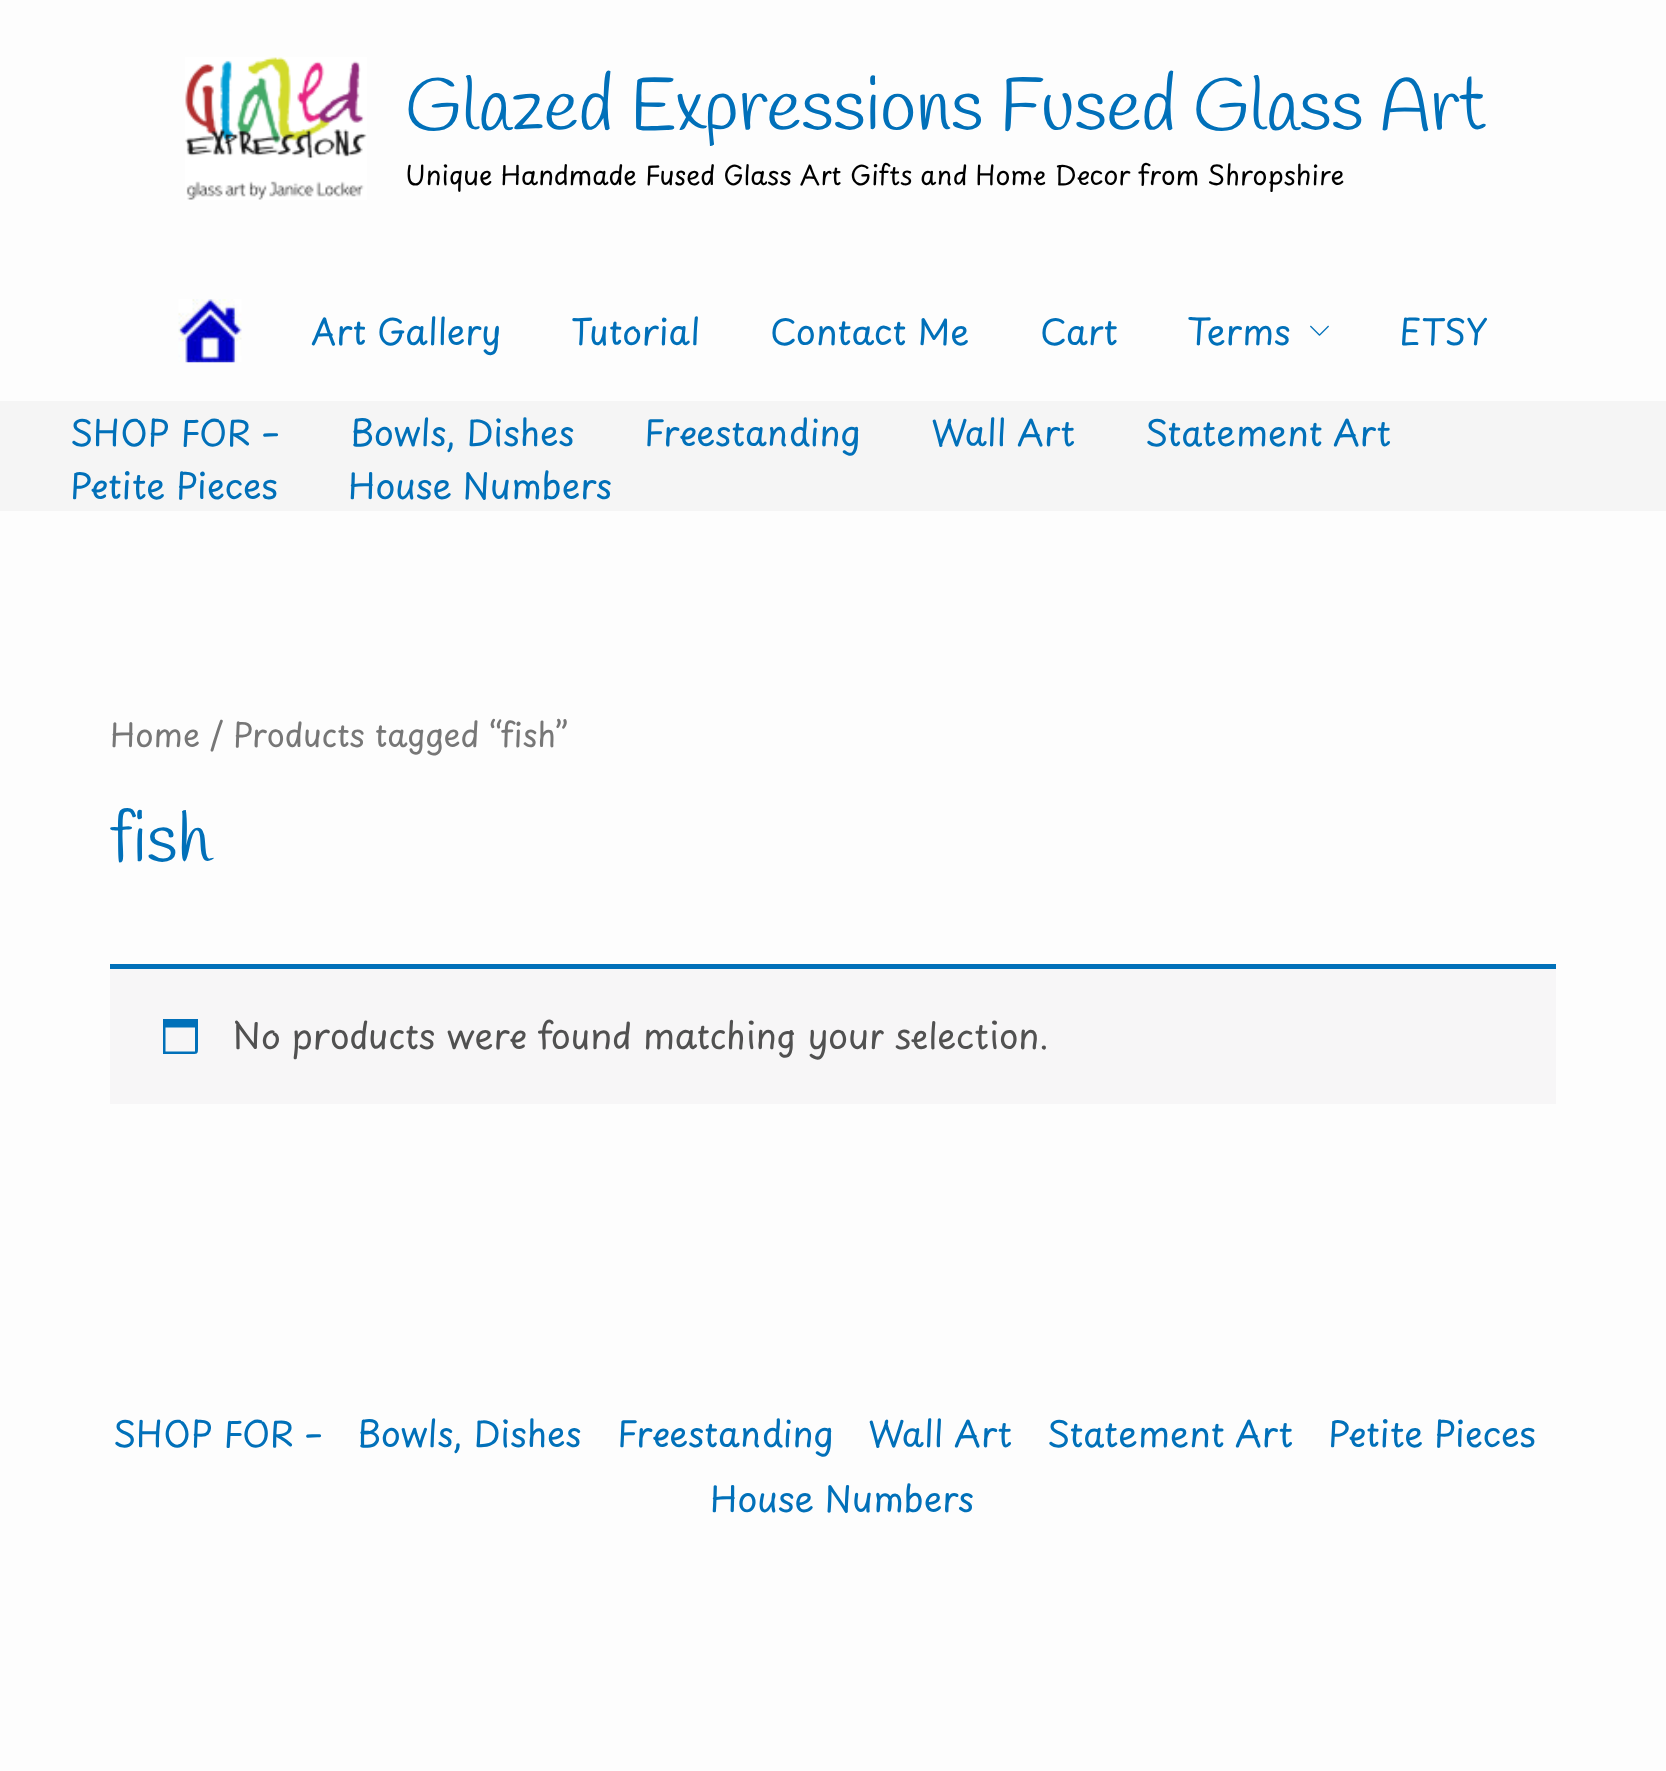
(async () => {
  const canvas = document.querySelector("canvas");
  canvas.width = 1666;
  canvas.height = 1771;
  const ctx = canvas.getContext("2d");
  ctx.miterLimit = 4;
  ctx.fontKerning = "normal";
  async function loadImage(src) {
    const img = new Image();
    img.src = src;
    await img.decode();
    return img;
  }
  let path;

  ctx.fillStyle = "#fdfdfd";
  ctx.fillRect(0, 0, 1666, 1771);
  ctx.drawImage(await loadImage("img/1.png"), 185, 57, 182, 143);
  ctx.drawImage(await loadImage("img/2.png"), 178, 299, 64, 64);
  ctx.drawImage(await loadImage("img/3.png"), 1310, 325, 19, 11);
  for (const [x, y, w, h, color] of [
    [0, 401, 1666, 110, "#f5f5f5"],
    [110, 969, 1446, 135, "#f7f6f7"],
    [110, 964, 1446, 5, "#0170b9"],
  ]) {
    ctx.fillStyle = color;
    ctx.fillRect(x, y, w, h);
  }
  path = new Path2D("M195 1027.5H165.5V1051.5H195ZM198 1019V1045.5C198 1054.5 198.5 1054 190 1054H163V1019Z");
  ctx.fill(path);
  ctx.font = "73.5px Handlee";
  ctx.fillText("Glazed Expressions Fused Glass Art", 405, 130);
  ctx.font = "26.25px Playpen Sans";
  ctx.fillStyle = "#000000";
  ctx.fillText("Unique Handmade Fused Glass Art Gifts and Home Decor from Shropshire", 405, 185);
  ctx.font = "35px Playpen Sans";
  ctx.fillStyle = "#0170b9";
  for (const [text, x, y] of [
    ["Art Gallery", 311, 345],
    ["Tutorial", 571, 345],
    ["Contact Me", 770, 345],
    ["Cart", 1040, 345],
    ["Terms", 1187, 345],
    ["ETSY", 1399, 345],
    ["SHOP FOR –", 70, 446],
    ["Bowls, Dishes", 350, 446],
    ["Freestanding", 644, 446],
    ["Wall Art", 931, 446],
    ["Statement Art", 1145, 446],
    ["Petite Pieces", 70, 499],
    ["House Numbers", 348, 499],
  ]) {
    ctx.fillText(text, x, y);
  }
  ctx.font = "32.25px Playpen Sans";
  ctx.fillStyle = "#777777";
  ctx.fillText("Home / Products tagged “fish”", 110, 747);
  ctx.font = "70px Handlee";
  ctx.fillStyle = "#0170b9";
  ctx.fillText("fish", 110, 862);
  ctx.font = "35px Playpen Sans";
  ctx.fillStyle = "#515151";
  ctx.fillText("No products were found matching your selection.", 232, 1049);
  ctx.fillStyle = "#0170b9";
  for (const [text, x, y] of [
    ["SHOP FOR –", 113, 1447],
    ["Bowls, Dishes", 357, 1447],
    ["Freestanding", 617, 1447],
    ["Wall Art", 868, 1447],
    ["Statement Art", 1047, 1447],
    ["Petite Pieces", 1328, 1447],
    ["House Numbers", 710, 1512],
  ]) {
    ctx.fillText(text, x, y);
  }
})();
